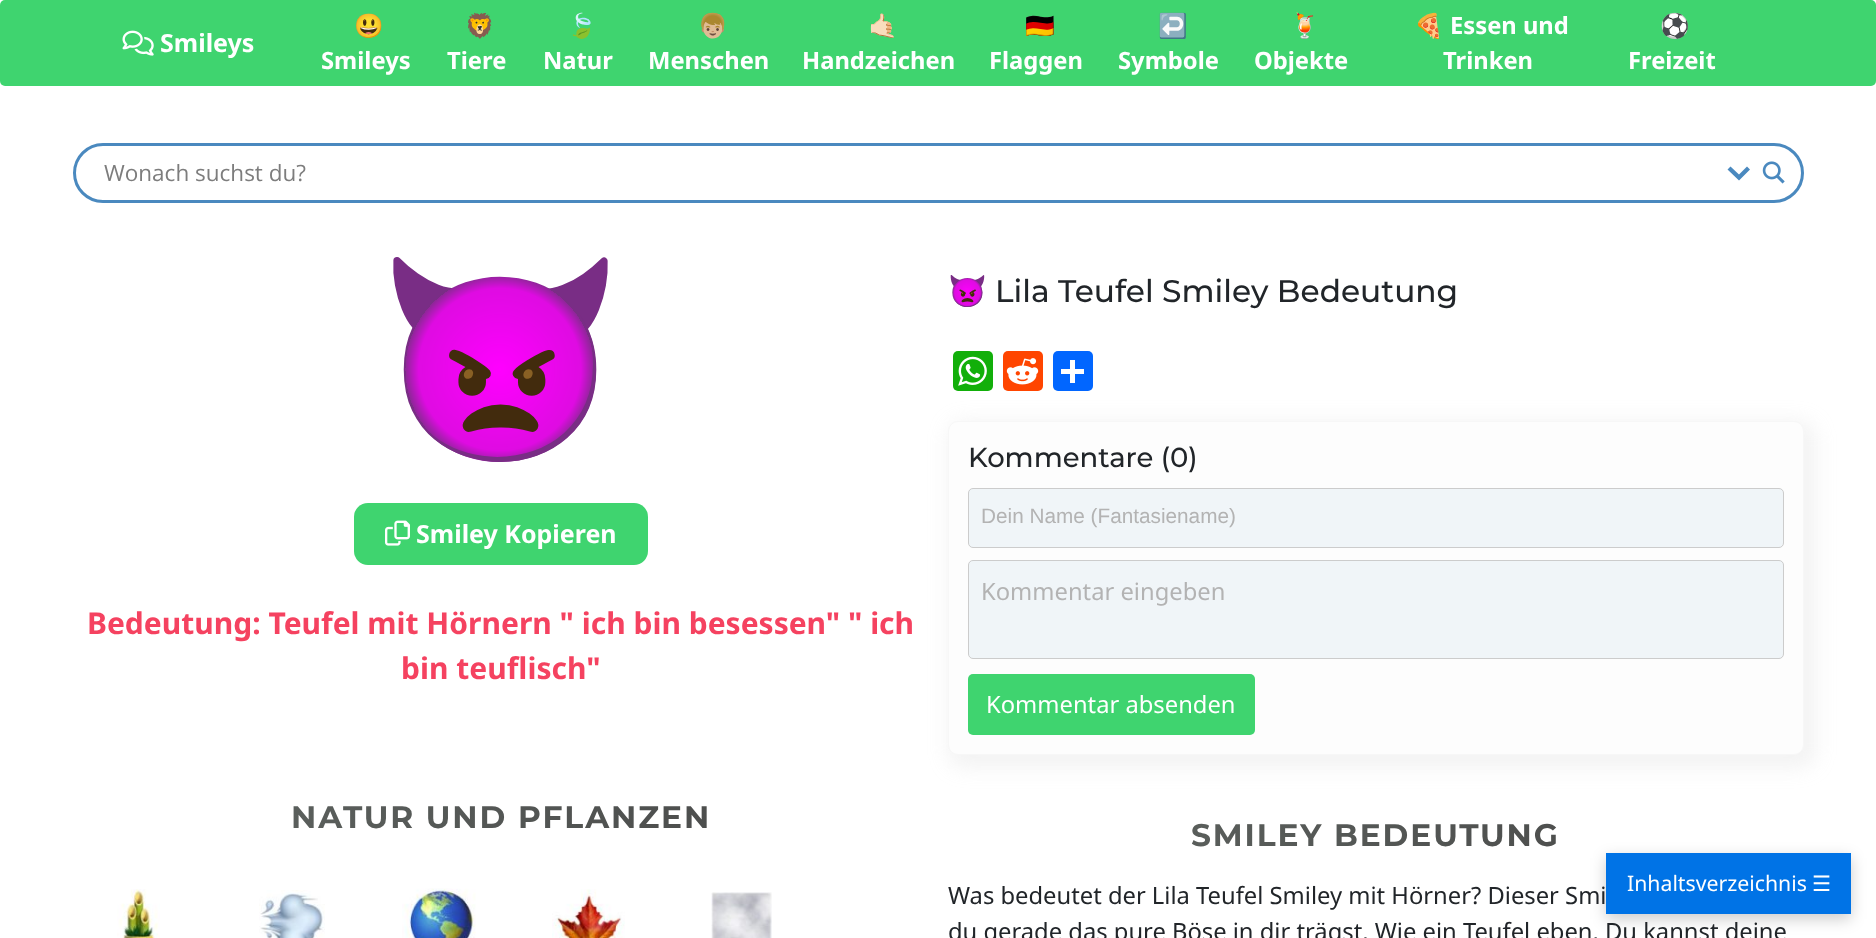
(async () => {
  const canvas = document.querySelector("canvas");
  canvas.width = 1876;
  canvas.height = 938;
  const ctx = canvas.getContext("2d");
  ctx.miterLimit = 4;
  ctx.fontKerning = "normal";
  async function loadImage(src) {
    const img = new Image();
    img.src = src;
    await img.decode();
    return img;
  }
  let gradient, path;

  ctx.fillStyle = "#ffffff";
  ctx.fillRect(0, 0, 1876, 938);
  ctx.fillStyle = "#3fd46f";
  ctx.beginPath();
  ctx.roundRect(0, 0, 1876, 86, 5);
  ctx.fill();
  ctx.drawImage(await loadImage("img/1.png"), 122, 30, 32, 26);
  ctx.beginPath();
  ctx.roundRect(74.5, 144.5, 1728, 57, 28.5);
  ctx.strokeStyle = "#4a89bf";
  ctx.lineWidth = 3;
  ctx.stroke();
  ctx.fillStyle = "#4a89bf";
  path = new Path2D("M1747 166.5L1750 169.5L1739 180.5L1727.5 169.5L1730.5 166.5L1739 174.5Z");
  ctx.fill(path);
  ctx.drawImage(await loadImage("img/2.png"), 1762, 161, 23, 23);
  ctx.fillStyle = "#3fd46f";
  ctx.beginPath();
  ctx.roundRect(354, 503, 294, 62, 14);
  ctx.fill();
  ctx.drawImage(await loadImage("img/3.png"), 385, 520, 25, 26);
  ctx.drawImage(await loadImage("img/4.png"), 117, 889, 43, 49);
  ctx.drawImage(await loadImage("img/5.png"), 259, 890, 66, 48);
  ctx.drawImage(await loadImage("img/6.png"), 402, 888, 74, 50);
  ctx.drawImage(await loadImage("img/7.png"), 552, 889, 73, 49);
  ctx.drawImage(await loadImage("img/8.png"), 711, 892, 61, 46);
  ctx.fillStyle = "#12af0a";
  ctx.beginPath();
  ctx.roundRect(953, 351, 40, 40, 5);
  ctx.fill();
  ctx.drawImage(await loadImage("img/9.png"), 958, 356, 29, 30);
  ctx.fillStyle = "#ff4500";
  ctx.beginPath();
  ctx.roundRect(1003, 351, 40, 40, 5);
  ctx.fill();
  ctx.drawImage(await loadImage("img/10.png"), 1006, 358, 33, 27);
  ctx.fillStyle = "#0166ff";
  ctx.beginPath();
  ctx.roundRect(1053, 351, 40, 40, 5);
  ctx.fill();
  ctx.fillStyle = "#ffffff";
  ctx.fillRect(1070, 360, 5, 23);
  ctx.fillRect(1061, 369, 23, 5);
  ctx.fillStyle = "rgba(204, 204, 204, 0.24)";
  ctx.filter = "blur(9.5px)";
  ctx.beginPath();
  ctx.roundRect(948, 421, 868, 347, 16);
  ctx.fill();
  ctx.filter = "none";
  ctx.fillStyle = "#fdfdfd";
  ctx.beginPath();
  ctx.roundRect(948.5, 421.5, 855, 333, 9.5);
  ctx.fill();
  ctx.strokeStyle = "#f7f7f7";
  ctx.lineWidth = 1;
  ctx.stroke();
  ctx.fillStyle = "#f0f5f8";
  ctx.beginPath();
  ctx.roundRect(968.5, 488.5, 815, 59, 4.5);
  ctx.fill();
  ctx.strokeStyle = "#cccccc";
  ctx.stroke();
  ctx.beginPath();
  ctx.roundRect(968.5, 560.5, 815, 98, 4.5);
  ctx.fill();
  ctx.stroke();
  ctx.fillStyle = "#3fd46f";
  ctx.beginPath();
  ctx.roundRect(968, 674, 287, 61, 5);
  ctx.fill();
  ctx.fillStyle = "rgba(0, 0, 0, 0.2)";
  ctx.filter = "blur(7.5px)";
  ctx.beginPath();
  ctx.rect(1606, 858, 245, 61);
  ctx.fill();
  ctx.filter = "none";
  ctx.fillStyle = "#0073e6";
  ctx.fillRect(1606, 853, 245, 61);
  ctx.font = "bold 25px Noto Sans";
  ctx.fillStyle = "#ffffff";
  ctx.fillText("Smileys", 160, 52);
  ctx.font = "bold 23.75px Noto Color Emoji";
  ctx.fillText("😃", 354, 34);
  ctx.font = "bold 23.75px Noto Sans";
  ctx.fillText("Smileys", 321, 69);
  ctx.font = "bold 23.75px Noto Color Emoji";
  ctx.fillText("🦁", 465, 34);
  ctx.font = "bold 23.75px Noto Sans";
  ctx.fillText("Tiere", 447, 69);
  ctx.font = "bold 23.75px Noto Color Emoji";
  ctx.fillText("🍃", 567, 34);
  ctx.font = "bold 23.75px Noto Sans";
  ctx.fillText("Natur", 543, 69);
  ctx.font = "bold 23.75px Noto Color Emoji";
  ctx.fillText("👦🏼", 698, 34);
  ctx.font = "bold 23.75px Noto Sans";
  ctx.fillText("Menschen", 648, 69);
  ctx.font = "bold 23.75px Noto Color Emoji";
  ctx.fillText("🤙🏻", 868, 34);
  ctx.font = "bold 23.75px Noto Sans";
  ctx.fillText("Handzeichen", 802, 69);
  ctx.font = "bold 23.75px Noto Color Emoji";
  ctx.fillText("🇩🇪", 1025, 34);
  ctx.font = "bold 23.75px Noto Sans";
  ctx.fillText("Flaggen", 989, 69);
  ctx.font = "bold 23.75px Noto Color Emoji";
  ctx.fillText("↩️", 1158, 34);
  ctx.font = "bold 23.75px Noto Sans";
  ctx.fillText("Symbole", 1118, 69);
  ctx.font = "bold 23.75px Noto Color Emoji";
  ctx.fillText("🍹", 1290, 34);
  ctx.font = "bold 23.75px Noto Sans";
  ctx.fillText("Objekte", 1254, 69);
  ctx.font = "bold 23.75px Noto Color Emoji";
  ctx.fillText("🍕", 1414, 34);
  ctx.font = "bold 23.75px Noto Sans";
  ctx.fillText("Essen und", 1450, 34);
  ctx.fillText("Trinken", 1443, 69);
  ctx.font = "bold 23.75px Noto Color Emoji";
  ctx.fillText("⚽️", 1660, 34);
  ctx.font = "bold 23.75px Noto Sans";
  ctx.fillText("Freizeit", 1628, 69);
  ctx.font = "22.5px Open Sans";
  ctx.fillStyle = "#7d7d7d";
  ctx.fillText("Wonach suchst du?", 104, 181);
  ctx.font = "200px Noto Color Emoji";
  ctx.fillStyle = "#212529";
  ctx.fillText("👿", 376, 430);
  ctx.font = "bold 25px Noto Sans";
  ctx.fillStyle = "#ffffff";
  ctx.fillText("Smiley Kopieren", 416, 543);
  ctx.font = "bold 30px Noto Sans";
  ctx.fillStyle = "#f54260";
  ctx.fillText("Bedeutung: Teufel mit Hörnern \" ich bin besessen\" \" ich", 87, 634);
  ctx.fillText("bin teuflisch\"", 401, 679);
  ctx.letterSpacing = "1.9px";
  ctx.font = "bold 31.25px Montserrat";
  gradient = ctx.createLinearGradient(73, 816, 929, 816);
  gradient.addColorStop(0, "#616763");
  gradient.addColorStop(1, "#464646");
  ctx.fillStyle = gradient;
  ctx.fillText("NATUR UND PFLANZEN", 291, 828);
  ctx.letterSpacing = "0px";
  ctx.font = "31.25px Noto Color Emoji";
  ctx.fillStyle = "#212529";
  ctx.fillText("👿", 948, 302);
  ctx.font = "500 31.25px Montserrat";
  ctx.fillText("Lila Teufel Smiley Bedeutung", 995, 302);
  ctx.font = "500 27.5px Montserrat";
  ctx.fillText("Kommentare (0)", 968, 467);
  ctx.font = "20.75px Liberation Sans";
  ctx.fillStyle = "#b3b3b3";
  ctx.fillText("Dein Name (Fantasiename)", 981, 523);
  ctx.font = "23.75px Noto Sans";
  ctx.fillText("Kommentar eingeben", 981, 600);
  ctx.fillStyle = "#ffffff";
  ctx.fillText("Kommentar absenden", 986, 713);
  ctx.letterSpacing = "1.9px";
  ctx.font = "bold 31.25px Montserrat";
  gradient = ctx.createLinearGradient(948, 834, 1804, 834);
  gradient.addColorStop(0, "#616763");
  gradient.addColorStop(1, "#464646");
  ctx.fillStyle = gradient;
  ctx.fillText("SMILEY BEDEUTUNG", 1191, 846);
  ctx.letterSpacing = "0px";
  ctx.font = "23.75px Noto Sans";
  ctx.fillStyle = "#212529";
  ctx.fillText("Was bedeutet der Lila Teufel Smiley mit Hörner? Dieser Smi", 948, 904);
  ctx.fillText("du gerade das pure Böse in dir trägst. Wie ein Teufel eben. Du kannst deine", 948, 940);
  ctx.font = "21.25px Noto Sans";
  ctx.fillStyle = "#ffffff";
  ctx.fillText("Inhaltsverzeichnis", 1627, 891);
  ctx.font = "21.25px DejaVu Sans";
  ctx.fillText("☰", 1812, 891);
})();
